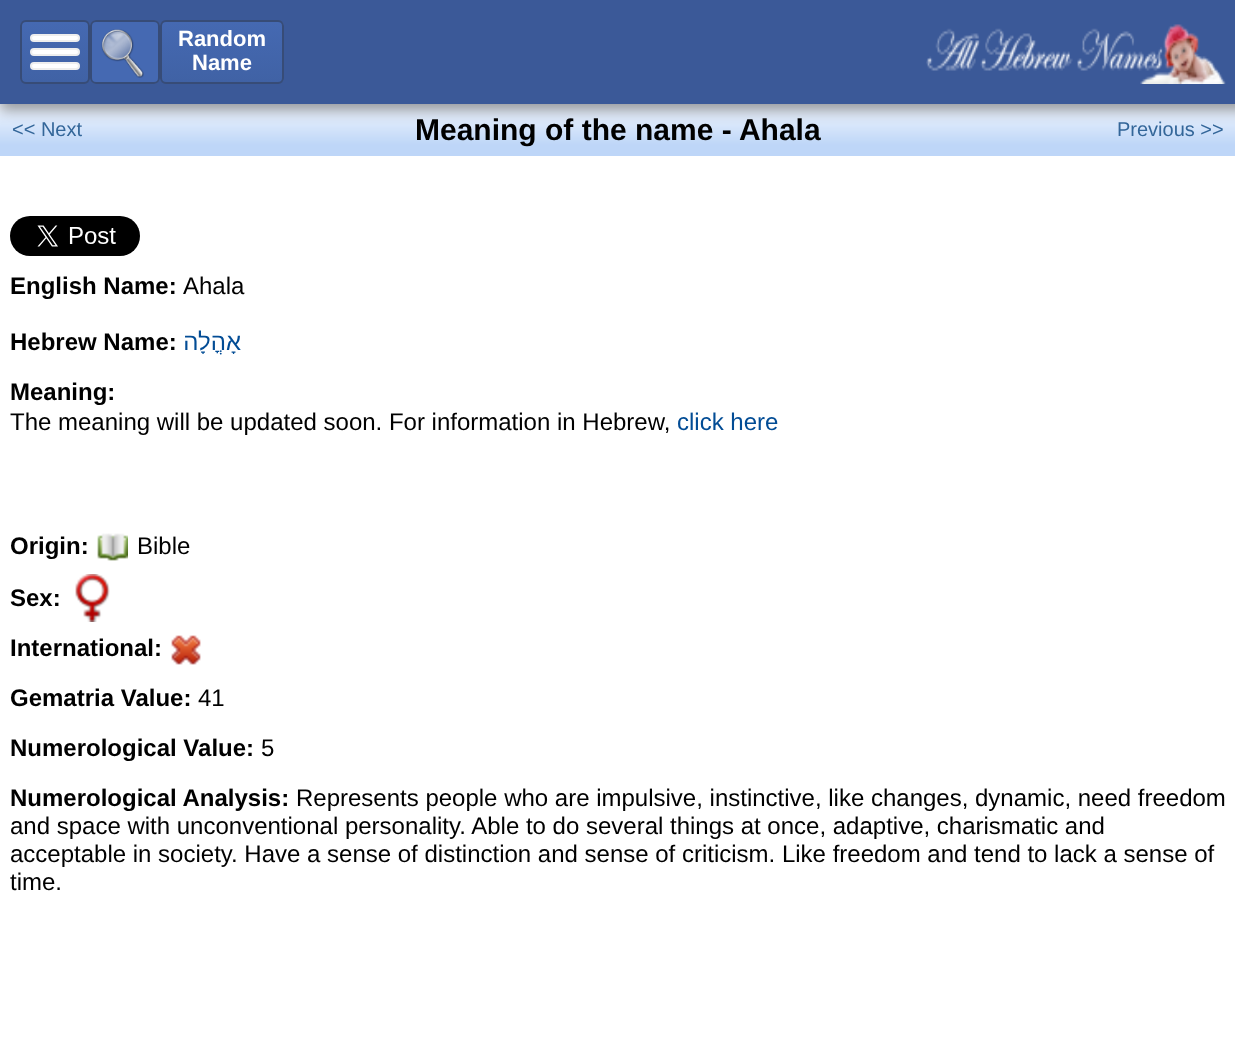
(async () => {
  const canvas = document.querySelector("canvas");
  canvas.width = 1235;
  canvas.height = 1054;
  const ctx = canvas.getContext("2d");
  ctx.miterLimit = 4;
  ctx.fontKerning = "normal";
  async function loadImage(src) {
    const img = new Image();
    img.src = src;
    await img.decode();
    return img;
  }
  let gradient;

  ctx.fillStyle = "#ffffff";
  ctx.fillRect(0, 0, 1235, 1054);
  ctx.drawImage(await loadImage("img/3.png"), 0, 104, 1235, 52);
  ctx.fillStyle = "rgba(0, 0, 0, 0.4)";
  ctx.filter = "blur(7px)";
  ctx.beginPath();
  ctx.rect(0, 6, 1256, 104);
  ctx.fill();
  ctx.filter = "none";
  ctx.fillStyle = "#3b5998";
  ctx.fillRect(0, 0, 1235, 104);
  ctx.save();
  ctx.beginPath();
  ctx.roundRect(20, 20, 70, 64, 6);
  ctx.clip();
  gradient = ctx.createLinearGradient(55, 22, 55, 82);
  gradient.addColorStop(0, "#4569b2");
  gradient.addColorStop(1, "#4062a5");
  ctx.fillStyle = gradient;
  ctx.fillRect(20, 22, 70, 60);
  ctx.restore();
  ctx.beginPath();
  ctx.roundRect(21, 21, 68, 62, 5);
  ctx.strokeStyle = "#374c77";
  ctx.lineWidth = 2;
  ctx.stroke();
  ctx.fillStyle = "#ffffff";
  ctx.beginPath();
  ctx.roundRect(31, 35, 48, 6, 3);
  ctx.fill();
  ctx.strokeStyle = "#eeeeee";
  ctx.stroke();
  ctx.beginPath();
  ctx.roundRect(31, 49, 48, 6, 3);
  ctx.fill();
  ctx.stroke();
  ctx.beginPath();
  ctx.roundRect(31, 63, 48, 6, 3);
  ctx.fill();
  ctx.stroke();
  ctx.fillStyle = "#4569b2";
  ctx.beginPath();
  ctx.roundRect(90, 20, 70, 64, 6);
  ctx.fill();
  ctx.drawImage(await loadImage("img/1.png"), 101, 29, 43, 49);
  ctx.beginPath();
  ctx.roundRect(91, 21, 68, 62, 5);
  ctx.strokeStyle = "#374c77";
  ctx.stroke();
  ctx.save();
  ctx.beginPath();
  ctx.roundRect(160, 20, 124, 64, 6);
  ctx.clip();
  gradient = ctx.createLinearGradient(222, 22, 222, 82);
  gradient.addColorStop(0, "#4569b2");
  gradient.addColorStop(1, "#4062a5");
  ctx.fillStyle = gradient;
  ctx.fillRect(160, 22, 124, 60);
  ctx.restore();
  ctx.beginPath();
  ctx.roundRect(161, 21, 122, 62, 5);
  ctx.stroke();
  ctx.drawImage(await loadImage("img/2.png"), 926, 24, 300, 60);
  ctx.drawImage(await loadImage("img/4.png"), 10, 216, 130, 40);
  ctx.drawImage(await loadImage("img/5.png"), 97, 533, 31, 28);
  ctx.drawImage(await loadImage("img/6.png"), 75, 574, 35, 48);
  ctx.drawImage(await loadImage("img/7.png"), 171, 635, 30, 30);
  ctx.font = "bold 22px Liberation Sans";
  ctx.fillStyle = "#ffffff";
  ctx.fillText("Random", 178, 46);
  ctx.fillText("Name", 192, 70);
  ctx.font = "20px Liberation Sans";
  ctx.fillStyle = "#336699";
  ctx.fillText("<< Next", 12, 136);
  ctx.font = "bold 30px Liberation Sans";
  ctx.fillStyle = "#000000";
  ctx.fillText("Meaning of the name - Ahala", 415, 140);
  ctx.font = "20px Liberation Sans";
  ctx.fillStyle = "#336699";
  ctx.fillText("Previous >>", 1117, 136);
  ctx.font = "bold 24px Liberation Sans";
  ctx.fillStyle = "#000000";
  ctx.fillText("English Name:", 10, 294);
  ctx.font = "24px Liberation Sans";
  ctx.fillText("Ahala", 183, 294);
  ctx.font = "bold 24px Liberation Sans";
  ctx.fillText("Hebrew Name:", 10, 350);
  ctx.direction = "rtl";
  ctx.font = "24px Liberation Sans";
  ctx.fillStyle = "#024c95";
  ctx.fillText("אָהֳלָה", 241, 350);
  ctx.direction = "ltr";
  ctx.font = "bold 24px Liberation Sans";
  ctx.fillStyle = "#000000";
  ctx.fillText("Meaning:", 10, 400);
  ctx.font = "24px Liberation Sans";
  ctx.fillText("The meaning will be updated soon. For information in Hebrew,", 10, 430);
  ctx.fillStyle = "#024c95";
  ctx.fillText("click here", 677, 430);
  ctx.font = "bold 24px Liberation Sans";
  ctx.fillStyle = "#000000";
  ctx.fillText("Origin:", 10, 554);
  ctx.font = "24px Liberation Sans";
  ctx.fillText("Bible", 137, 554);
  ctx.font = "bold 24px Liberation Sans";
  for (const [text, x, y] of [
    ["Sex:", 10, 606],
    ["International:", 10, 656],
    ["Gematria Value:", 10, 706],
  ]) {
    ctx.fillText(text, x, y);
  }
  ctx.font = "24px Liberation Sans";
  ctx.fillText("41", 198, 706);
  ctx.font = "bold 24px Liberation Sans";
  ctx.fillText("Numerological Value:", 10, 756);
  ctx.font = "24px Liberation Sans";
  ctx.fillText("5", 261, 756);
  ctx.font = "bold 24px Liberation Sans";
  ctx.fillText("Numerological Analysis:", 10, 806);
  ctx.font = "24px Liberation Sans";
  for (const [text, x, y] of [
    ["Represents people who are impulsive, instinctive, like changes, dynamic, need freedom", 296, 806],
    ["and space with unconventional personality. Able to do several things at once, adaptive, charismatic and", 10, 834],
    ["acceptable in society. Have a sense of distinction and sense of criticism. Like freedom and tend to lack a sense of", 10, 862],
    ["time.", 10, 890],
  ]) {
    ctx.fillText(text, x, y);
  }
})();
